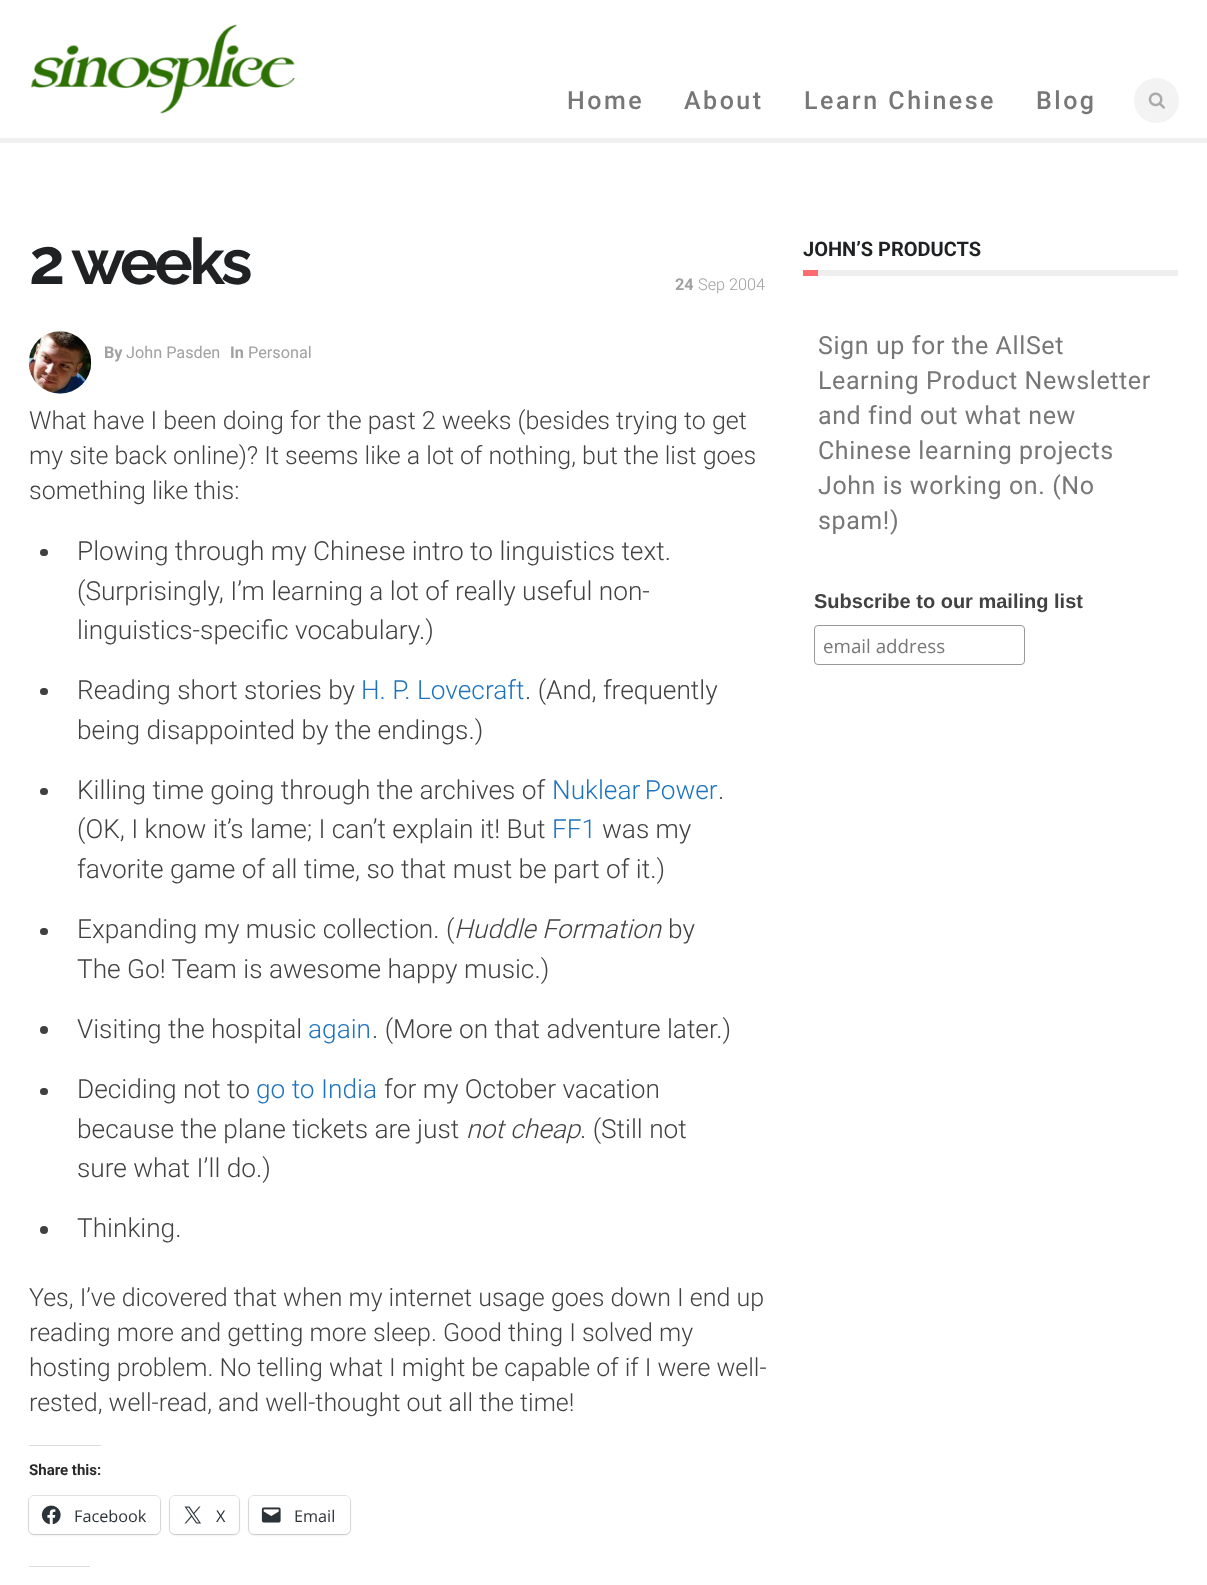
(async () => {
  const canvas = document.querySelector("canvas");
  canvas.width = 1207;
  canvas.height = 1585;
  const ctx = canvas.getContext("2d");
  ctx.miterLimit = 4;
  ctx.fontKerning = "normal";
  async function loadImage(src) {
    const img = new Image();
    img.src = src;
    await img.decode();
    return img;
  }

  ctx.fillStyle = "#ffffff";
  ctx.fillRect(0, 0, 1207, 1585);
  ctx.fillStyle = "#f0f0f0";
  ctx.fillRect(0, 138, 1207, 5);
  ctx.drawImage(await loadImage("img/1.png"), 30, 24, 265, 90);
  ctx.fillStyle = "#f3f3f3";
  ctx.beginPath();
  ctx.arc(1156.5, 100.5, 22.5, 0, Math.PI * 2);
  ctx.fill();
  ctx.drawImage(await loadImage("img/2.png"), 1148, 92, 17, 17);
  ctx.drawImage(await loadImage("img/3.png"), 28, 331, 64, 63);
  ctx.fillStyle = "#404040";
  ctx.beginPath();
  ctx.roundRect(40, 549, 8, 7, 3.5);
  ctx.fill();
  ctx.beginPath();
  ctx.roundRect(40, 688, 8, 7, 3.5);
  ctx.fill();
  ctx.beginPath();
  ctx.roundRect(40, 788, 8, 7, 3.5);
  ctx.fill();
  ctx.beginPath();
  ctx.roundRect(40, 928, 8, 7, 3.5);
  ctx.fill();
  ctx.beginPath();
  ctx.arc(44, 1030, 4, 0, Math.PI * 2);
  ctx.fill();
  ctx.beginPath();
  ctx.roundRect(40, 1088, 8, 7, 3.5);
  ctx.fill();
  ctx.beginPath();
  ctx.arc(44, 1230, 4, 0, Math.PI * 2);
  ctx.fill();
  ctx.fillStyle = "#dcdcde";
  ctx.fillRect(29, 1445, 72, 1);
  ctx.beginPath();
  ctx.roundRect(28.5, 1495.5, 132, 39, 5.5);
  ctx.strokeStyle = "#e0e0e0";
  ctx.stroke();
  ctx.fillStyle = "rgba(0, 0, 0, 0.12)";
  ctx.filter = "blur(1px)";
  ctx.beginPath();
  ctx.roundRect(29, 1498, 131, 37, 5);
  ctx.fill();
  ctx.filter = "none";
  ctx.fillStyle = "#ffffff";
  ctx.beginPath();
  ctx.roundRect(29, 1496, 131, 38, 5);
  ctx.fill();
  ctx.drawImage(await loadImage("img/4.png"), 41, 1505, 20, 20);
  ctx.beginPath();
  ctx.roundRect(169.5, 1495.5, 70, 39, 5.5);
  ctx.stroke();
  ctx.fillStyle = "rgba(0, 0, 0, 0.12)";
  ctx.filter = "blur(1px)";
  ctx.beginPath();
  ctx.roundRect(170, 1498, 69, 37, 5);
  ctx.fill();
  ctx.filter = "none";
  ctx.fillStyle = "#ffffff";
  ctx.beginPath();
  ctx.roundRect(170, 1496, 69, 38, 5);
  ctx.fill();
  ctx.drawImage(await loadImage("img/5.png"), 184, 1506, 17, 18);
  ctx.beginPath();
  ctx.roundRect(248.5, 1495.5, 102, 39, 5.5);
  ctx.stroke();
  ctx.fillStyle = "rgba(0, 0, 0, 0.12)";
  ctx.filter = "blur(1px)";
  ctx.beginPath();
  ctx.roundRect(249, 1498, 101, 37, 5);
  ctx.fill();
  ctx.filter = "none";
  ctx.fillStyle = "#ffffff";
  ctx.beginPath();
  ctx.roundRect(249, 1496, 101, 38, 5);
  ctx.fill();
  ctx.drawImage(await loadImage("img/6.png"), 261, 1507, 20, 16);
  for (const [x, y, w, h, color] of [
    [29, 1566, 61, 1, "#dcdcde"],
    [803, 270, 15, 6, "#ff6c6d"],
    [818, 270, 360, 6, "#eeeeee"],
  ]) {
    ctx.fillStyle = color;
    ctx.fillRect(x, y, w, h);
  }
  ctx.beginPath();
  ctx.roundRect(814.5, 625.5, 210, 39, 3.5);
  ctx.strokeStyle = "#999999";
  ctx.stroke();
  ctx.letterSpacing = "2.5px";
  ctx.font = "500 25px Roboto";
  ctx.fillStyle = "#777777";
  for (const [text, x, y] of [
    ["Home", 567, 109],
    ["About", 684, 109],
    ["Learn Chinese", 804, 109],
    ["Blog", 1036, 109],
  ]) {
    ctx.fillText(text, x, y);
  }
  ctx.letterSpacing = "-3.75px";
  ctx.font = "bold 64px Raleway";
  ctx.fillStyle = "#1f2123";
  ctx.fillText("2 weeks", 29, 284);
  ctx.letterSpacing = "0px";
  ctx.font = "bold 16.25px Roboto";
  ctx.fillStyle = "#a1a1a1";
  ctx.fillText("24", 675, 290);
  ctx.font = "300 16.25px Roboto";
  ctx.fillText("Sep 2004", 698, 290);
  ctx.font = "bold 16.25px Roboto";
  ctx.fillText("By", 104, 358);
  ctx.font = "16.25px Roboto";
  ctx.fillText("John Pasden", 126, 358);
  ctx.font = "bold 16.25px Roboto";
  ctx.fillText("In", 230, 358);
  ctx.font = "16.25px Roboto";
  ctx.fillText("Personal", 248, 358);
  ctx.font = "300 25px Roboto";
  ctx.fillStyle = "#424242";
  for (const [text, x, y] of [
    ["What have I been doing for the past 2 weeks (besides trying to get", 29, 429],
    ["my site back online)? It seems like a lot of nothing, but the list goes", 29, 464],
    ["something like this:", 29, 499],
  ]) {
    ctx.fillText(text, x, y);
  }
  ctx.font = "300 26.25px Roboto";
  for (const [text, x, y] of [
    ["Plowing through my Chinese intro to linguistics text.", 77, 560],
    ["(Surprisingly, I’m learning a lot of really useful non-", 77, 600],
    ["linguistics-specific vocabulary.)", 77, 639],
    ["Reading short stories by", 77, 699],
  ]) {
    ctx.fillText(text, x, y);
  }
  ctx.fillStyle = "#1e73be";
  ctx.fillText("H. P. Lovecraft", 361, 699);
  ctx.fillStyle = "#424242";
  for (const [text, x, y] of [
    [". (And, frequently", 525, 699],
    ["being disappointed by the endings.)", 77, 739],
    ["Killing time going through the archives of", 77, 799],
  ]) {
    ctx.fillText(text, x, y);
  }
  ctx.wordSpacing = "-2px";
  ctx.fillStyle = "#1e73be";
  ctx.fillText("Nuklear Power", 552, 799);
  ctx.wordSpacing = "0px";
  ctx.fillStyle = "#424242";
  ctx.fillText(".", 718, 799);
  ctx.fillText("(OK, I know it’s lame; I can’t explain it! But", 77, 838);
  ctx.fillStyle = "#1e73be";
  ctx.fillText("FF1", 552, 838);
  ctx.fillStyle = "#424242";
  for (const [text, x, y] of [
    ["was my", 602, 838],
    ["favorite game of all time, so that must be part of it.)", 77, 878],
    ["Expanding my music collection. (", 77, 938],
  ]) {
    ctx.fillText(text, x, y);
  }
  ctx.font = "italic 300 26.25px Roboto";
  ctx.fillText("Huddle Formation", 454, 938);
  ctx.font = "300 26.25px Roboto";
  for (const [text, x, y] of [
    ["by", 668, 938],
    ["The Go! Team is awesome happy music.)", 77, 978],
    ["Visiting the hospital", 77, 1038],
  ]) {
    ctx.fillText(text, x, y);
  }
  ctx.fillStyle = "#1e73be";
  ctx.fillText("again", 308, 1038);
  ctx.fillStyle = "#424242";
  ctx.fillText(". (More on that adventure later.)", 372, 1038);
  ctx.fillText("Deciding not to", 77, 1098);
  ctx.fillStyle = "#1e73be";
  ctx.fillText("go to India", 256, 1098);
  ctx.fillStyle = "#424242";
  ctx.fillText("for my October vacation", 384, 1098);
  ctx.fillText("because the plane tickets are just", 77, 1138);
  ctx.font = "italic 300 26.25px Roboto";
  ctx.fillText("not cheap", 466, 1138);
  ctx.font = "300 26.25px Roboto";
  for (const [text, x, y] of [
    [". (Still not", 580, 1138],
    ["sure what I’ll do.)", 77, 1177],
    ["Thinking.", 77, 1237],
  ]) {
    ctx.fillText(text, x, y);
  }
  ctx.font = "300 25px Roboto";
  for (const [text, x, y] of [
    ["Yes, I’ve dicovered that when my internet usage goes down I end up", 29, 1306],
    ["reading more and getting more sleep. Good thing I solved my", 29, 1341],
    ["hosting problem. No telling what I might be capable of if I were well-", 29, 1376],
    ["rested, well-read, and well-thought out all the time!", 29, 1411],
  ]) {
    ctx.fillText(text, x, y);
  }
  ctx.font = "bold 15px Roboto";
  ctx.fillStyle = "#292929";
  ctx.fillText("Share this:", 29, 1475);
  ctx.font = "16.25px Open Sans";
  ctx.fillStyle = "#2c3338";
  for (const [text, x, y] of [
    ["Facebook", 74, 1522],
    ["X", 216, 1522],
    ["Email", 294, 1522],
  ]) {
    ctx.fillText(text, x, y);
  }
  ctx.font = "bold 20px Roboto";
  ctx.fillStyle = "#1f2123";
  ctx.fillText("JOHN’S PRODUCTS", 803, 256);
  ctx.letterSpacing = "0.6px";
  ctx.font = "25px Roboto";
  ctx.fillStyle = "#777777";
  for (const [text, x, y] of [
    ["Sign up for the AllSet", 818, 354],
    ["Learning Product Newsletter", 818, 389],
    ["and find out what new", 818, 424],
    ["Chinese learning projects", 818, 459],
    ["John is working on. (No", 818, 494],
    ["spam!)", 818, 529],
  ]) {
    ctx.fillText(text, x, y);
  }
  ctx.letterSpacing = "0px";
  ctx.font = "bold 20px Liberation Sans";
  ctx.fillStyle = "#424242";
  ctx.fillText("Subscribe to our mailing list", 814, 608);
  ctx.font = "18.75px Open Sans";
  ctx.fillStyle = "#777777";
  ctx.fillText("email address", 823, 653);
})();
